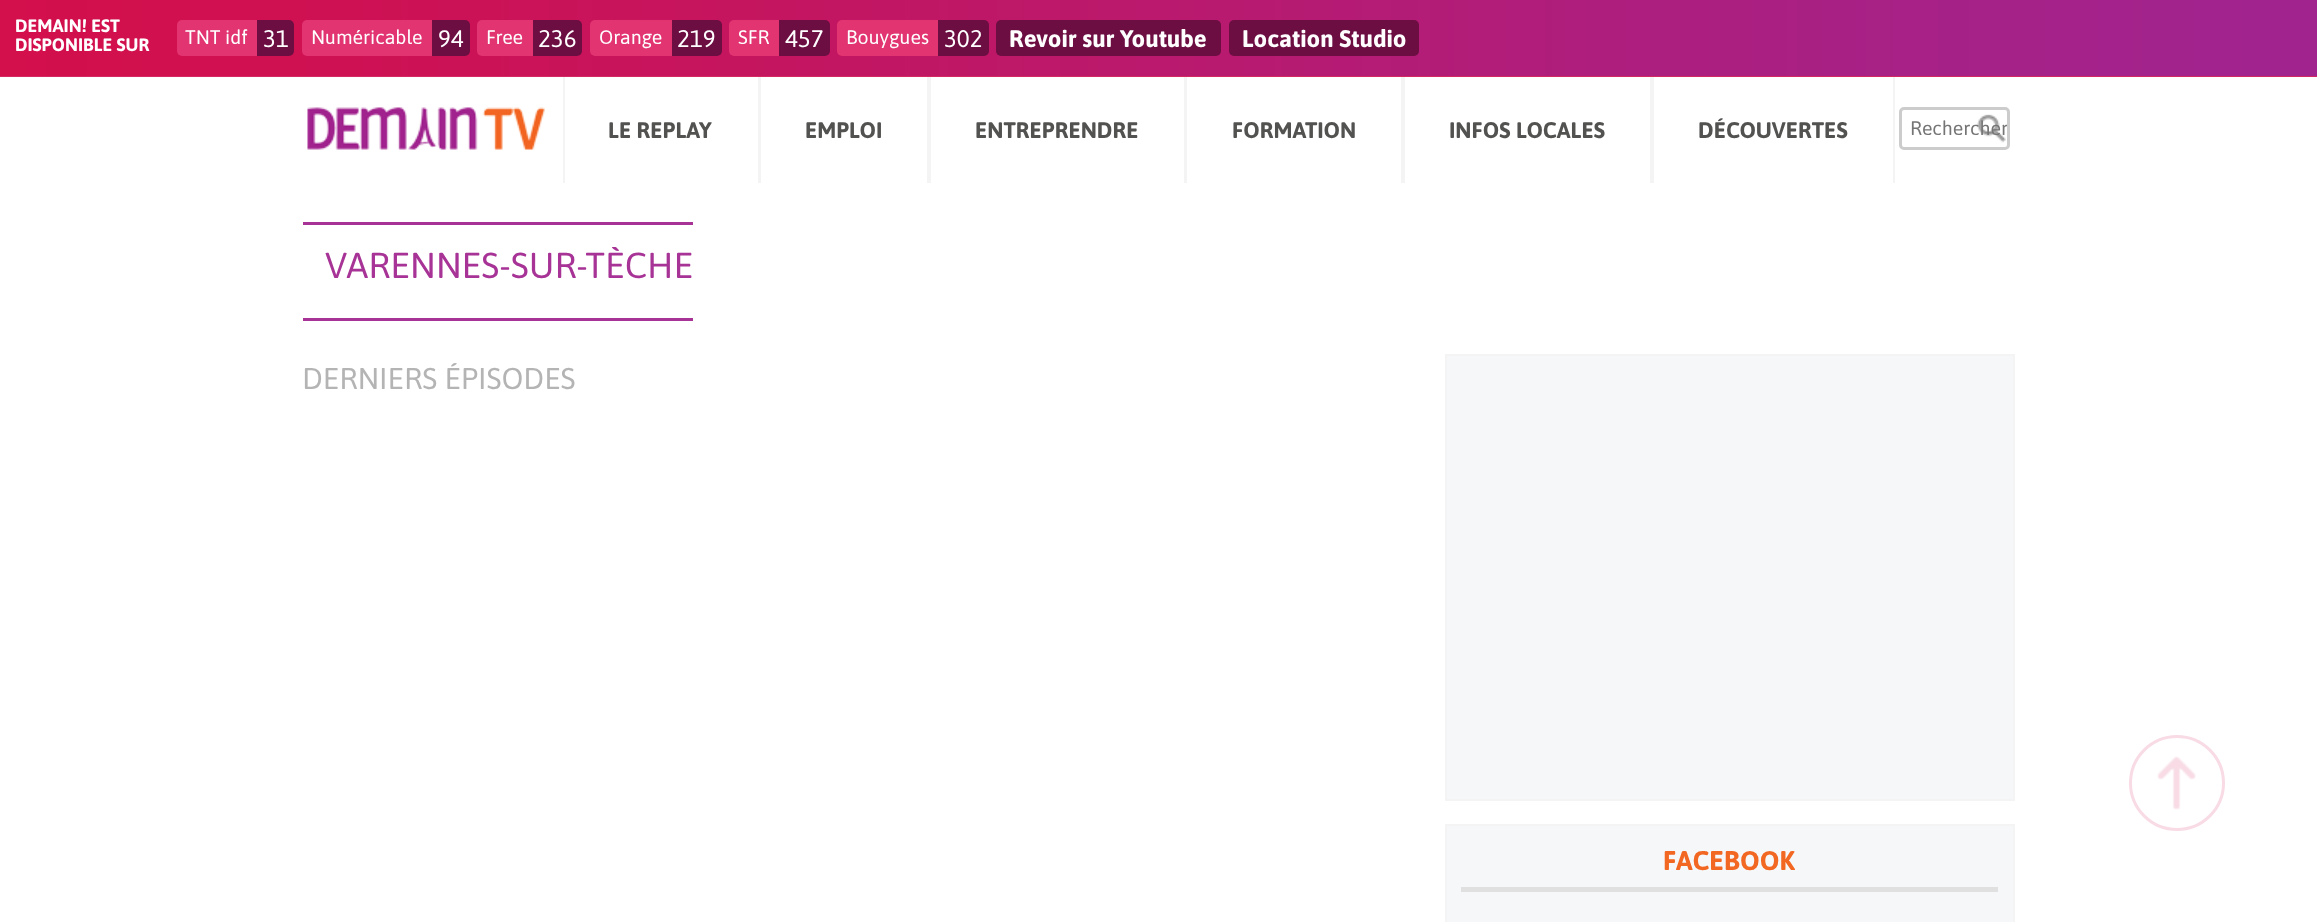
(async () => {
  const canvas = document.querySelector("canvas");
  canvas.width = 2317;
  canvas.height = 922;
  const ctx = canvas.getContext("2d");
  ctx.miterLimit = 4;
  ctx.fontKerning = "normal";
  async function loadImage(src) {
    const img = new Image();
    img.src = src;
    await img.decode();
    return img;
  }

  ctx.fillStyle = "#ffffff";
  ctx.fillRect(0, 0, 2317, 922);
  ctx.fillStyle = "#d42863";
  ctx.fillRect(0, 76, 2317, 1);
  ctx.drawImage(await loadImage("img/1.png"), 0, 0, 2317, 76);
  ctx.fillStyle = "#e13470";
  ctx.beginPath();
  ctx.roundRect(177, 20, 80, 36, [5, 0, 0, 5]);
  ctx.fill();
  ctx.fillStyle = "#6d0e43";
  ctx.beginPath();
  ctx.roundRect(257, 20, 37, 36, [0, 5, 5, 0]);
  ctx.fill();
  ctx.fillStyle = "#e13470";
  ctx.beginPath();
  ctx.roundRect(302, 20, 130, 36, [5, 0, 0, 5]);
  ctx.fill();
  ctx.fillStyle = "#6d0e43";
  ctx.beginPath();
  ctx.roundRect(432, 20, 38, 36, [0, 5, 5, 0]);
  ctx.fill();
  ctx.fillStyle = "#e13470";
  ctx.beginPath();
  ctx.roundRect(477, 20, 56, 36, [5, 0, 0, 5]);
  ctx.fill();
  ctx.fillStyle = "#6d0e43";
  ctx.beginPath();
  ctx.roundRect(533, 20, 49, 36, [0, 5, 5, 0]);
  ctx.fill();
  ctx.fillStyle = "#e13470";
  ctx.beginPath();
  ctx.roundRect(590, 20, 82, 36, [5, 0, 0, 5]);
  ctx.fill();
  ctx.fillStyle = "#6d0e43";
  ctx.beginPath();
  ctx.roundRect(672, 20, 50, 36, [0, 5, 5, 0]);
  ctx.fill();
  ctx.fillStyle = "#e13470";
  ctx.beginPath();
  ctx.roundRect(729, 20, 50, 36, [5, 0, 0, 5]);
  ctx.fill();
  ctx.fillStyle = "#6d0e43";
  ctx.beginPath();
  ctx.roundRect(779, 20, 51, 36, [0, 5, 5, 0]);
  ctx.fill();
  ctx.fillStyle = "#e13470";
  ctx.beginPath();
  ctx.roundRect(837, 20, 101, 36, [5, 0, 0, 5]);
  ctx.fill();
  ctx.fillStyle = "#6d0e43";
  ctx.beginPath();
  ctx.roundRect(938, 20, 51, 36, [0, 5, 5, 0]);
  ctx.fill();
  ctx.beginPath();
  ctx.roundRect(996, 20, 225, 36, 5);
  ctx.fill();
  ctx.beginPath();
  ctx.roundRect(1229, 20, 190, 36, 5);
  ctx.fill();
  ctx.drawImage(await loadImage("img/2.png"), 307, 107, 238, 43);
  for (const [x, y, w, h, color] of [
    [758, 77, 3, 106, "#f4f4f4"],
    [563, 77, 2, 106, "#f4f4f4"],
    [927, 77, 4, 106, "#f4f4f4"],
    [1184, 77, 3, 106, "#f4f4f4"],
    [1401, 77, 4, 106, "#f4f4f4"],
    [1650, 77, 4, 106, "#f4f4f4"],
    [1893, 77, 2, 106, "#f4f4f4"],
  ]) {
    ctx.fillStyle = color;
    ctx.fillRect(x, y, w, h);
  }
  ctx.drawImage(await loadImage("img/3.png"), 1977, 114, 29, 29);
  ctx.beginPath();
  ctx.roundRect(1900.5, 108.5, 108, 40, 3.5);
  ctx.strokeStyle = "#cccccc";
  ctx.lineWidth = 3;
  ctx.stroke();
  ctx.fillStyle = "#a73396";
  ctx.fillRect(303, 222, 390, 3);
  ctx.fillRect(303, 318, 390, 3);
  ctx.fillStyle = "#f6f7f8";
  ctx.beginPath();
  ctx.rect(1446, 355, 568, 445);
  ctx.fill();
  ctx.strokeStyle = "#f4f4f4";
  ctx.lineWidth = 2;
  ctx.stroke();
  ctx.beginPath();
  ctx.rect(1446, 825, 568, 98);
  ctx.fill();
  ctx.stroke();
  ctx.fillStyle = "#e0e0e0";
  ctx.fillRect(1461, 887, 537, 5);
  ctx.drawImage(await loadImage("img/4.png"), 2157, 756, 39, 54);
  ctx.beginPath();
  ctx.arc(2177, 783, 46.5, 0, Math.PI * 2);
  ctx.strokeStyle = "#f8dbe5";
  ctx.lineWidth = 3;
  ctx.stroke();
  ctx.font = "bold 18px Asap";
  ctx.fillStyle = "#ffffff";
  ctx.fillText("DEMAIN! EST", 15, 32);
  ctx.fillText("DISPONIBLE SUR", 15, 51);
  ctx.font = "19.5px Asap";
  ctx.fillText("TNT idf", 185, 44);
  ctx.font = "24px Asap";
  ctx.fillText("31", 263, 47);
  ctx.font = "19.5px Asap";
  ctx.fillText("Numéricable", 311, 44);
  ctx.font = "24px Asap";
  ctx.fillText("94", 438, 47);
  ctx.font = "19.5px Asap";
  ctx.fillText("Free", 486, 44);
  ctx.font = "24px Asap";
  ctx.fillText("236", 538, 47);
  ctx.font = "19.5px Asap";
  ctx.fillText("Orange", 599, 44);
  ctx.font = "24px Asap";
  ctx.fillText("219", 677, 47);
  ctx.font = "19.5px Asap";
  ctx.fillText("SFR", 738, 44);
  ctx.font = "24px Asap";
  ctx.fillText("457", 785, 47);
  ctx.font = "19.5px Asap";
  ctx.fillText("Bouygues", 846, 44);
  ctx.font = "24px Asap";
  ctx.fillText("302", 944, 47);
  ctx.font = "bold 24px Asap";
  ctx.fillText("Revoir sur Youtube", 1009, 47);
  ctx.fillText("Location Studio", 1242, 47);
  ctx.font = "bold 22.5px Asap";
  ctx.fillStyle = "#525251";
  for (const [text, x, y] of [
    ["LE REPLAY", 608, 138],
    ["EMPLOI", 805, 138],
    ["ENTREPRENDRE", 975, 138],
    ["FORMATION", 1232, 138],
    ["INFOS LOCALES", 1449, 138],
    ["DÉCOUVERTES", 1698, 138],
  ]) {
    ctx.fillText(text, x, y);
  }
  ctx.save();
  ctx.beginPath();
  ctx.roundRect(1902, 110, 105, 37, 1.5);
  ctx.clip();
  ctx.font = "19.5px Asap";
  ctx.fillStyle = "#757575";
  ctx.fillText("Rechercher", 1910, 135);
  ctx.restore();
  ctx.font = "36px Asap";
  ctx.fillStyle = "#a73396";
  ctx.fillText("VARENNES-SUR-TÈCHE", 325, 278);
  ctx.font = "30px Asap";
  ctx.fillStyle = "#b4b4b4";
  ctx.fillText("DERNIERS ÉPISODES", 302, 389);
  ctx.font = "bold 27px Asap";
  ctx.fillStyle = "#f26722";
  ctx.fillText("FACEBOOK", 1663, 870);
})();
